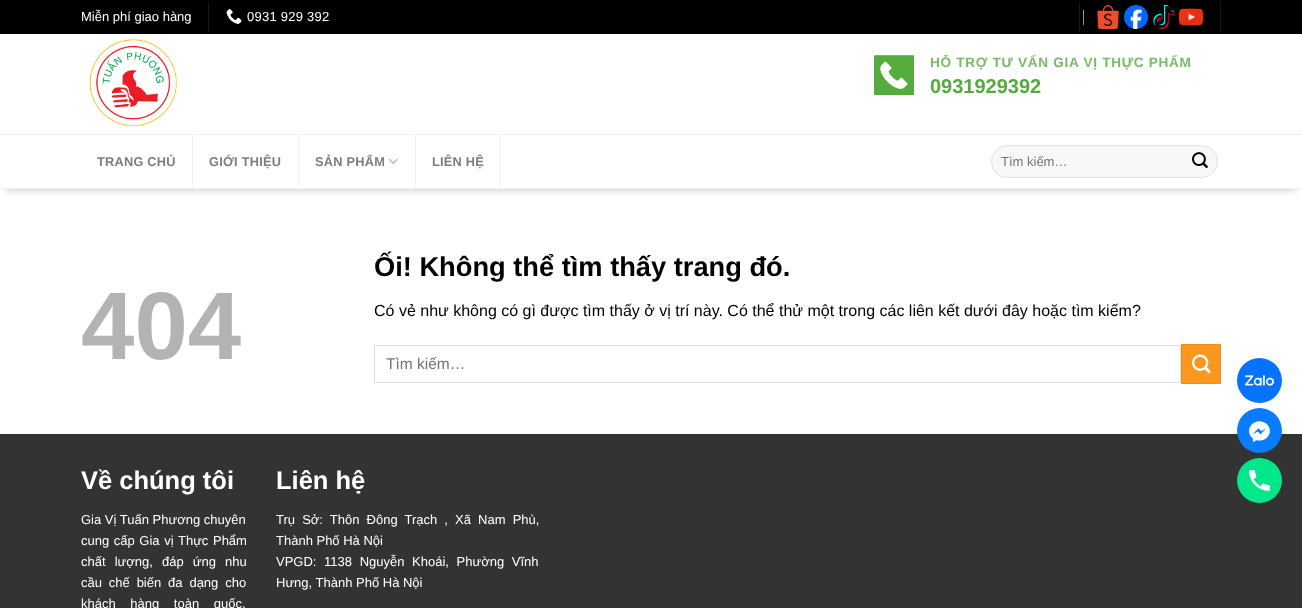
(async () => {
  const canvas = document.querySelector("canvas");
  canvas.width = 1302;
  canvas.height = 608;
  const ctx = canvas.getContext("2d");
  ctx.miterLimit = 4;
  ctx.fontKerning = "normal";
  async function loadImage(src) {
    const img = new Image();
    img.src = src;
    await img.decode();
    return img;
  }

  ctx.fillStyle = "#ffffff";
  ctx.fillRect(0, 0, 1302, 608);
  ctx.fillStyle = "#000000";
  ctx.fillRect(0, 0, 1302, 34);
  ctx.fillStyle = "#1a1a1a";
  ctx.fillRect(208, 2, 1, 30);
  ctx.drawImage(await loadImage("img/1.png"), 226, 9, 16, 15);
  ctx.fillRect(1079, 2, 1, 30);
  ctx.drawImage(await loadImage("img/2.png"), 1096, 5, 24, 24);
  ctx.drawImage(await loadImage("img/3.png"), 1124, 5, 24, 24);
  ctx.drawImage(await loadImage("img/4.png"), 1153, 5, 22, 24);
  ctx.fillStyle = "#979797";
  ctx.fillRect(1083, 10, 1, 15);
  ctx.drawImage(await loadImage("img/5.png"), 1179, 8, 24, 18);
  ctx.fillStyle = "#1a1a1a";
  ctx.fillRect(1220, 2, 1, 30);
  ctx.drawImage(await loadImage("img/6.png"), 89, 39, 88, 87);
  ctx.drawImage(await loadImage("img/7.png"), 874, 55, 40, 40);
  ctx.save();
  ctx.beginPath();
  ctx.rect(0, 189, 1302, 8);
  ctx.clip();
  ctx.fillStyle = "#d4d4d4";
  ctx.filter = "blur(3px)";
  ctx.beginPath();
  ctx.rect(6, 148, 1290, 43);
  ctx.fill();
  ctx.filter = "none";
  ctx.restore();
  for (const [x, y, w, h, color] of [
    [0, 134, 1302, 1, "#f2f2f2"],
    [0, 188, 1302, 1, "#f2f2f2"],
    [192, 135, 1, 53, "#f2f2f2"],
    [298, 135, 1, 53, "#f2f2f2"],
    [415, 135, 1, 53, "#f2f2f2"],
  ]) {
    ctx.fillStyle = color;
    ctx.fillRect(x, y, w, h);
  }
  ctx.drawImage(await loadImage("img/8.png"), 388, 158, 10, 6);
  ctx.fillRect(500, 135, 1, 53);
  ctx.fillStyle = "#f7f7f7";
  ctx.beginPath();
  ctx.roundRect(991, 145, 227, 33, 16.5);
  ctx.fill();
  ctx.beginPath();
  ctx.roundRect(991.5, 145.5, 226, 32, 16);
  ctx.strokeStyle = "rgba(0, 0, 0, 0.09)";
  ctx.stroke();
  ctx.drawImage(await loadImage("img/9.png"), 1192, 152, 16, 16);
  ctx.strokeStyle = "#dddddd";
  ctx.strokeRect(374.5, 345.5, 806, 37);
  ctx.fillStyle = "#fa971f";
  ctx.beginPath();
  ctx.rect(1181.5, 344.5, 39, 39);
  ctx.fill();
  ctx.strokeStyle = "#ee8f1d";
  ctx.stroke();
  ctx.drawImage(await loadImage("img/10.png"), 1192, 354, 19, 20);
  ctx.fillStyle = "#333333";
  ctx.fillRect(0, 434, 1302, 174);
  ctx.fillStyle = "#0573ff";
  ctx.beginPath();
  ctx.arc(1259.5, 380.5, 22.5, 0, Math.PI * 2);
  ctx.fill();
  ctx.drawImage(await loadImage("img/11.png"), 1245, 375, 29, 11);
  ctx.fillStyle = "#0a7cff";
  ctx.beginPath();
  ctx.arc(1259.5, 430.5, 22.5, 0, Math.PI * 2);
  ctx.fill();
  ctx.drawImage(await loadImage("img/12.png"), 1249, 421, 21, 21);
  ctx.fillStyle = "#03e78b";
  ctx.beginPath();
  ctx.arc(1259.5, 480.5, 22.5, 0, Math.PI * 2);
  ctx.fill();
  ctx.drawImage(await loadImage("img/13.png"), 1249, 470, 21, 21);
  ctx.font = "13px Liberation Sans";
  ctx.fillStyle = "#ffffff";
  ctx.fillText("Miễn phí giao hàng", 81, 21);
  ctx.letterSpacing = "0.25px";
  ctx.fillText("0931 929 392", 247, 21);
  ctx.letterSpacing = "0.7px";
  ctx.font = "bold 13.6px Liberation Sans";
  ctx.fillStyle = "#77bc63";
  ctx.fillText("HỖ TRỢ TƯ VẤN GIA VỊ THỰC PHẨM", 930, 67);
  ctx.letterSpacing = "0px";
  ctx.font = "bold 20px Liberation Sans";
  ctx.fillStyle = "#55ab3c";
  ctx.fillText("0931929392", 930, 93);
  ctx.letterSpacing = "0.25px";
  ctx.font = "bold 12.75px Liberation Sans";
  ctx.fillStyle = "#7d7d7d";
  for (const [text, x, y] of [
    ["TRANG CHỦ", 97, 166],
    ["GIỚI THIỆU", 209, 166],
    ["SẢN PHẨM", 315, 166],
    ["LIÊN HỆ", 432, 166],
  ]) {
    ctx.fillText(text, x, y);
  }
  ctx.letterSpacing = "0px";
  ctx.font = "13px Liberation Sans";
  ctx.fillStyle = "#757575";
  ctx.fillText("Tìm kiếm…", 1001, 166);
  ctx.font = "bold 96px Liberation Sans";
  ctx.fillStyle = "#b3b3b3";
  ctx.fillText("404", 81, 359);
  ctx.font = "bold 27.25px Liberation Sans";
  ctx.fillStyle = "#000000";
  ctx.fillText("Ối! Không thể tìm thấy trang đó.", 374, 276);
  ctx.font = "16px Liberation Sans";
  ctx.fillText("Có vẻ như không có gì được tìm thấy ở vị trí này. Có thể thử một trong các liên kết dưới đây hoặc tìm kiếm?", 374, 316);
  ctx.font = "15.5px Liberation Sans";
  ctx.fillStyle = "#757575";
  ctx.fillText("Tìm kiếm…", 386, 369);
  ctx.font = "bold 25.5px Liberation Sans";
  ctx.fillStyle = "#ffffff";
  ctx.fillText("Về chúng tôi", 81, 489);
  ctx.font = "13px Liberation Sans";
  ctx.fillText("Gia Vị Tuấn Phương chuyên", 81, 524);
  ctx.wordSpacing = "1px";
  ctx.fillText("cung cấp Gia vị Thực Phẩm", 81, 545);
  ctx.wordSpacing = "5.5px";
  ctx.fillText("chất lượng, đáp ứng nhu", 81, 566);
  ctx.wordSpacing = "3.25px";
  ctx.fillText("cầu chế biến đa dạng cho", 81, 587);
  ctx.wordSpacing = "11px";
  ctx.fillText("khách hàng toàn quốc.", 81, 608);
  ctx.wordSpacing = "0px";
  ctx.font = "bold 25.5px Liberation Sans";
  ctx.fillText("Liên hệ", 276, 489);
  ctx.wordSpacing = "3.5px";
  ctx.font = "13px Liberation Sans";
  ctx.fillText("Trụ Sở: Thôn Đông Trạch , Xã Nam Phù,", 276, 524);
  ctx.wordSpacing = "0px";
  ctx.fillText("Thành Phố Hà Nội", 276, 545);
  ctx.wordSpacing = "4px";
  ctx.fillText("VPGD: 1138 Nguyễn Khoái, Phường Vĩnh", 276, 566);
  ctx.wordSpacing = "0px";
  ctx.fillText("Hưng, Thành Phố Hà Nội", 276, 587);
})();
